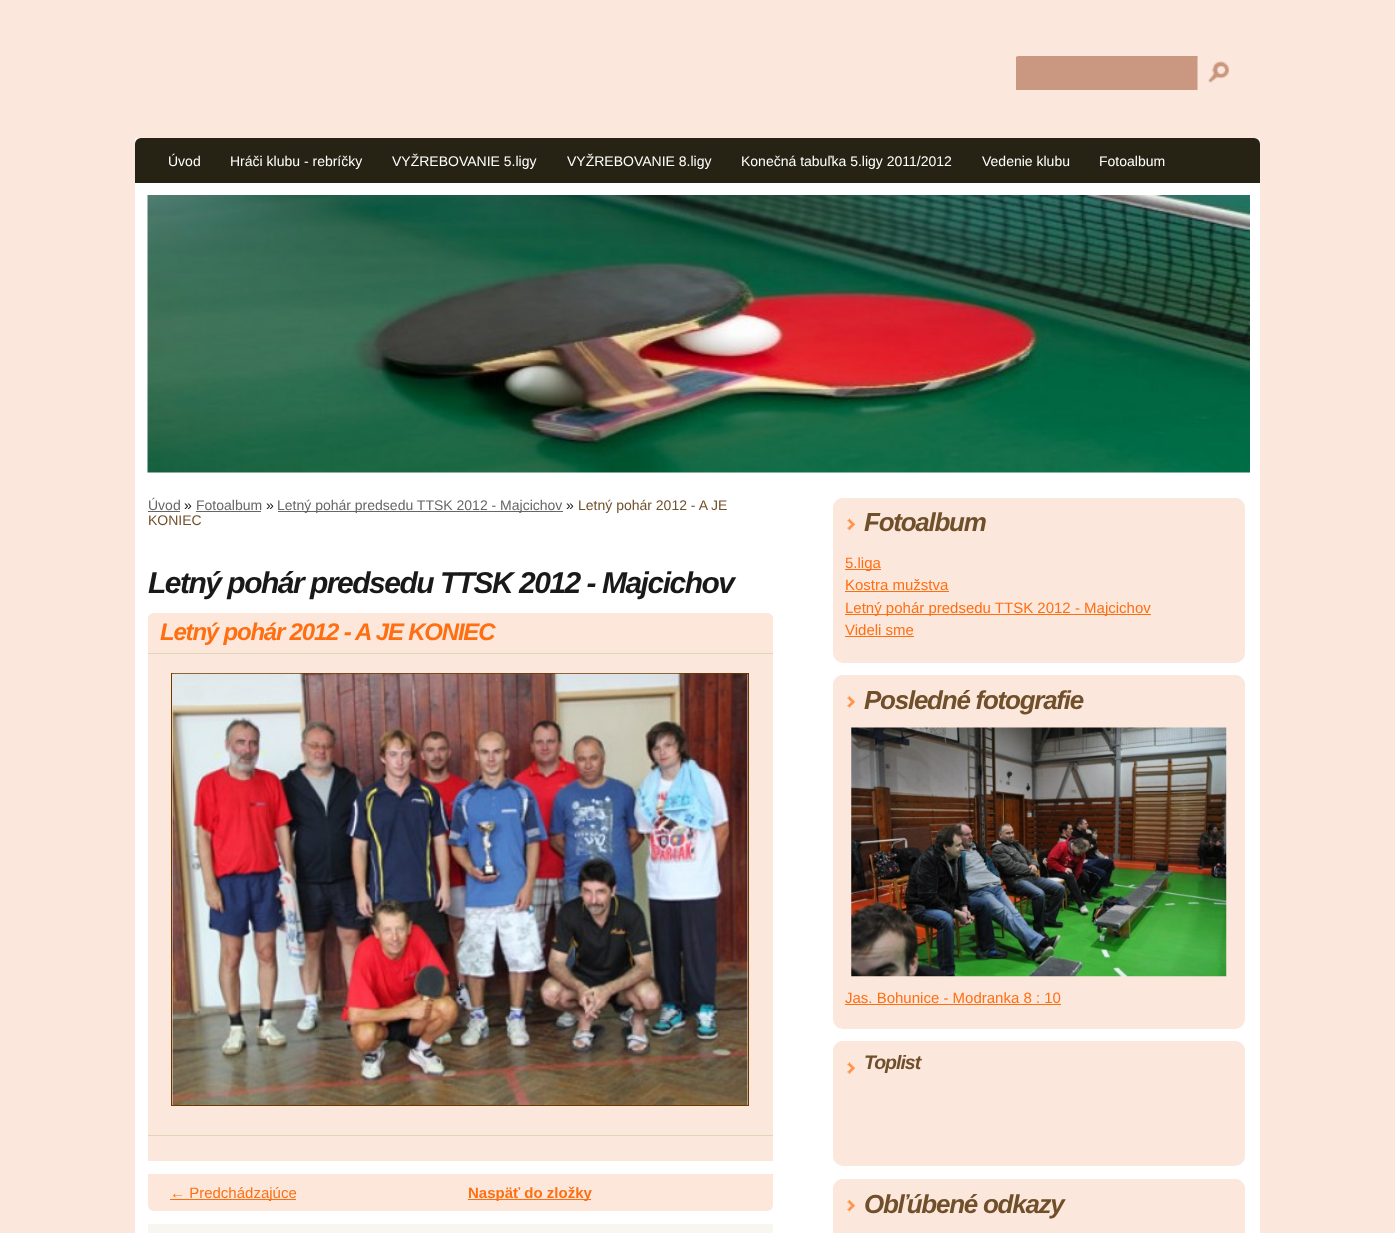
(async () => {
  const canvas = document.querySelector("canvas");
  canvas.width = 1395;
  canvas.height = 1233;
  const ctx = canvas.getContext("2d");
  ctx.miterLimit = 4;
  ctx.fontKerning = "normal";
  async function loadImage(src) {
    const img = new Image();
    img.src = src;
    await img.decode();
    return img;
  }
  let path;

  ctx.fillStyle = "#fce7dc";
  ctx.fillRect(0, 0, 1395, 1233);
  ctx.fillStyle = "#ffffff";
  ctx.fillRect(135, 138, 1125, 1095);
  ctx.fillStyle = "#262314";
  ctx.beginPath();
  ctx.roundRect(135, 138, 1125, 45, [6, 6, 0, 0]);
  ctx.fill();
  ctx.drawImage(await loadImage("img/1.png"), 147, 195, 1103, 278);
  for (const [x, y, w, h, color] of [
    [148, 511, 32, 1, "#666666"],
    [196, 511, 65, 1, "#666666"],
    [278, 511, 285, 1, "#666666"],
  ]) {
    ctx.fillStyle = color;
    ctx.fillRect(x, y, w, h);
  }
  ctx.fillStyle = "#fce7dc";
  ctx.beginPath();
  ctx.roundRect(148, 613, 625, 548, [6, 6, 0, 0]);
  ctx.fill();
  ctx.fillStyle = "#fce7da";
  ctx.beginPath();
  ctx.roundRect(148, 613, 625, 41, [6, 6, 0, 0]);
  ctx.fill();
  ctx.fillStyle = "#ded7b6";
  ctx.fillRect(148, 653, 625, 1);
  ctx.fillRect(148, 1135, 625, 1);
  ctx.strokeStyle = "#6c3a00";
  ctx.strokeRect(171.5, 673.5, 577, 432);
  ctx.drawImage(await loadImage("img/2.png"), 172, 673, 576, 432);
  ctx.fillStyle = "#fce7da";
  ctx.beginPath();
  ctx.roundRect(148, 1174, 625, 37, [0, 0, 6, 6]);
  ctx.fill();
  for (const [x, y, w, h, color] of [
    [170, 1199, 126, 1, "#ff6f12"],
    [468, 1199, 123, 1, "#ff6f12"],
    [148, 1224, 625, 9, "#f7f6f0"],
  ]) {
    ctx.fillStyle = color;
    ctx.fillRect(x, y, w, h);
  }
  ctx.save();
  ctx.beginPath();
  ctx.roundRect(1010, 56, 250, 43, 10);
  ctx.clip();
  ctx.fillStyle = "#ca9780";
  ctx.fillRect(1016, 56, 181, 33);
  ctx.restore();
  ctx.fillStyle = "#ca9780";
  path = new Path2D("M1020 56L1016 57V90H1198V56ZM1017 57V89H1197V57Z");
  ctx.fill(path, "evenodd");
  ctx.drawImage(await loadImage("img/3.png"), 1197, 56, 32, 34);
  ctx.fillStyle = "#fce7dc";
  ctx.beginPath();
  ctx.roundRect(833, 498, 412, 165, 10);
  ctx.fill();
  ctx.beginPath();
  ctx.roundRect(833, 498, 412, 40, [10, 10, 0, 0]);
  ctx.fill();
  ctx.drawImage(await loadImage("img/4.png"), 847, 518, 8, 12);
  for (const [x, y, w, h, color] of [
    [845, 569, 36, 1, "#ff6f12"],
    [845, 591, 104, 1, "#ff6f12"],
    [845, 614, 306, 1, "#ff6f12"],
    [845, 636, 69, 1, "#ff6f12"],
  ]) {
    ctx.fillStyle = color;
    ctx.fillRect(x, y, w, h);
  }
  ctx.fillStyle = "#fce7dc";
  ctx.beginPath();
  ctx.roundRect(833, 675, 412, 354, 10);
  ctx.fill();
  ctx.beginPath();
  ctx.roundRect(833, 675, 412, 40, [10, 10, 0, 0]);
  ctx.fill();
  ctx.drawImage(await loadImage("img/5.png"), 847, 696, 8, 12);
  ctx.drawImage(await loadImage("img/6.png"), 851, 727, 376, 250);
  ctx.fillStyle = "#ff6f12";
  ctx.fillRect(845, 1004, 216, 1);
  ctx.fillStyle = "#fce7dc";
  ctx.beginPath();
  ctx.roundRect(833, 1041, 412, 125, 10);
  ctx.fill();
  ctx.beginPath();
  ctx.roundRect(833, 1041, 412, 33, [10, 10, 0, 0]);
  ctx.fill();
  ctx.drawImage(await loadImage("img/7.png"), 847, 1062, 8, 12);
  ctx.beginPath();
  ctx.roundRect(833, 1179, 412, 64, 10);
  ctx.fill();
  ctx.beginPath();
  ctx.roundRect(833, 1179, 412, 40, [10, 10, 0, 0]);
  ctx.fill();
  ctx.drawImage(await loadImage("img/8.png"), 847, 1200, 8, 12);
  ctx.font = "14px Liberation Sans";
  ctx.fillStyle = "#ffffff";
  for (const [text, x, y] of [
    ["Úvod", 168, 166],
    ["Hráči klubu - rebríčky", 230, 166],
    ["VYŽREBOVANIE 5.ligy", 392, 166],
    ["VYŽREBOVANIE 8.ligy", 567, 166],
    ["Konečná tabuľka 5.ligy 2011/2012", 741, 166],
    ["Vedenie klubu", 982, 166],
    ["Fotoalbum", 1099, 166],
  ]) {
    ctx.fillText(text, x, y);
  }
  ctx.fillStyle = "#666666";
  ctx.fillText("Úvod", 148, 510);
  ctx.fillStyle = "#191919";
  ctx.fillText("»", 184, 510);
  ctx.fillStyle = "#666666";
  ctx.fillText("Fotoalbum", 196, 510);
  ctx.fillStyle = "#191919";
  ctx.fillText("»", 266, 510);
  ctx.fillStyle = "#666666";
  ctx.fillText("Letný pohár predsedu TTSK 2012 - Majcichov", 277, 510);
  ctx.fillStyle = "#191919";
  ctx.fillText("»", 566, 510);
  ctx.fillStyle = "#70502b";
  ctx.fillText("Letný pohár 2012 - A JE", 578, 510);
  ctx.fillText("KONIEC", 148, 525);
  ctx.letterSpacing = "-1.5px";
  ctx.font = "italic bold 30px Liberation Sans";
  ctx.fillStyle = "#191919";
  ctx.fillText("Letný pohár predsedu TTSK 2012 - Majcichov", 148, 593);
  ctx.letterSpacing = "-1.2px";
  ctx.font = "italic bold 24px Liberation Sans";
  ctx.fillStyle = "#ff6f12";
  ctx.fillText("Letný pohár 2012 - A JE KONIEC", 160, 640);
  ctx.letterSpacing = "0px";
  ctx.font = "15px Liberation Sans";
  ctx.fillText("← Predchádzajúce", 170, 1198);
  ctx.font = "bold 15px Liberation Sans";
  ctx.fillText("Naspäť do zložky", 468, 1198);
  ctx.letterSpacing = "-1.25px";
  ctx.font = "italic bold 26px Liberation Sans";
  ctx.fillStyle = "#70502b";
  ctx.fillText("Fotoalbum", 864, 531);
  ctx.letterSpacing = "0px";
  ctx.font = "15px Liberation Sans";
  ctx.fillStyle = "#ff6f12";
  for (const [text, x, y] of [
    ["5.liga", 845, 568],
    ["Kostra mužstva", 845, 590],
    ["Letný pohár predsedu TTSK 2012 - Majcichov", 845, 613],
    ["Videli sme", 845, 635],
  ]) {
    ctx.fillText(text, x, y);
  }
  ctx.letterSpacing = "-1.25px";
  ctx.font = "italic bold 26px Liberation Sans";
  ctx.fillStyle = "#70502b";
  ctx.fillText("Posledné fotografie", 864, 709);
  ctx.letterSpacing = "0px";
  ctx.font = "15px Liberation Sans";
  ctx.fillStyle = "#ff6f12";
  ctx.fillText("Jas. Bohunice - Modranka 8 : 10", 845, 1003);
  ctx.letterSpacing = "-1px";
  ctx.font = "italic bold 19.5px Liberation Sans";
  ctx.fillStyle = "#70502b";
  ctx.fillText("Toplist", 864, 1069);
  ctx.letterSpacing = "-1.25px";
  ctx.font = "italic bold 26px Liberation Sans";
  ctx.fillText("Obľúbené odkazy", 864, 1213);
})();
